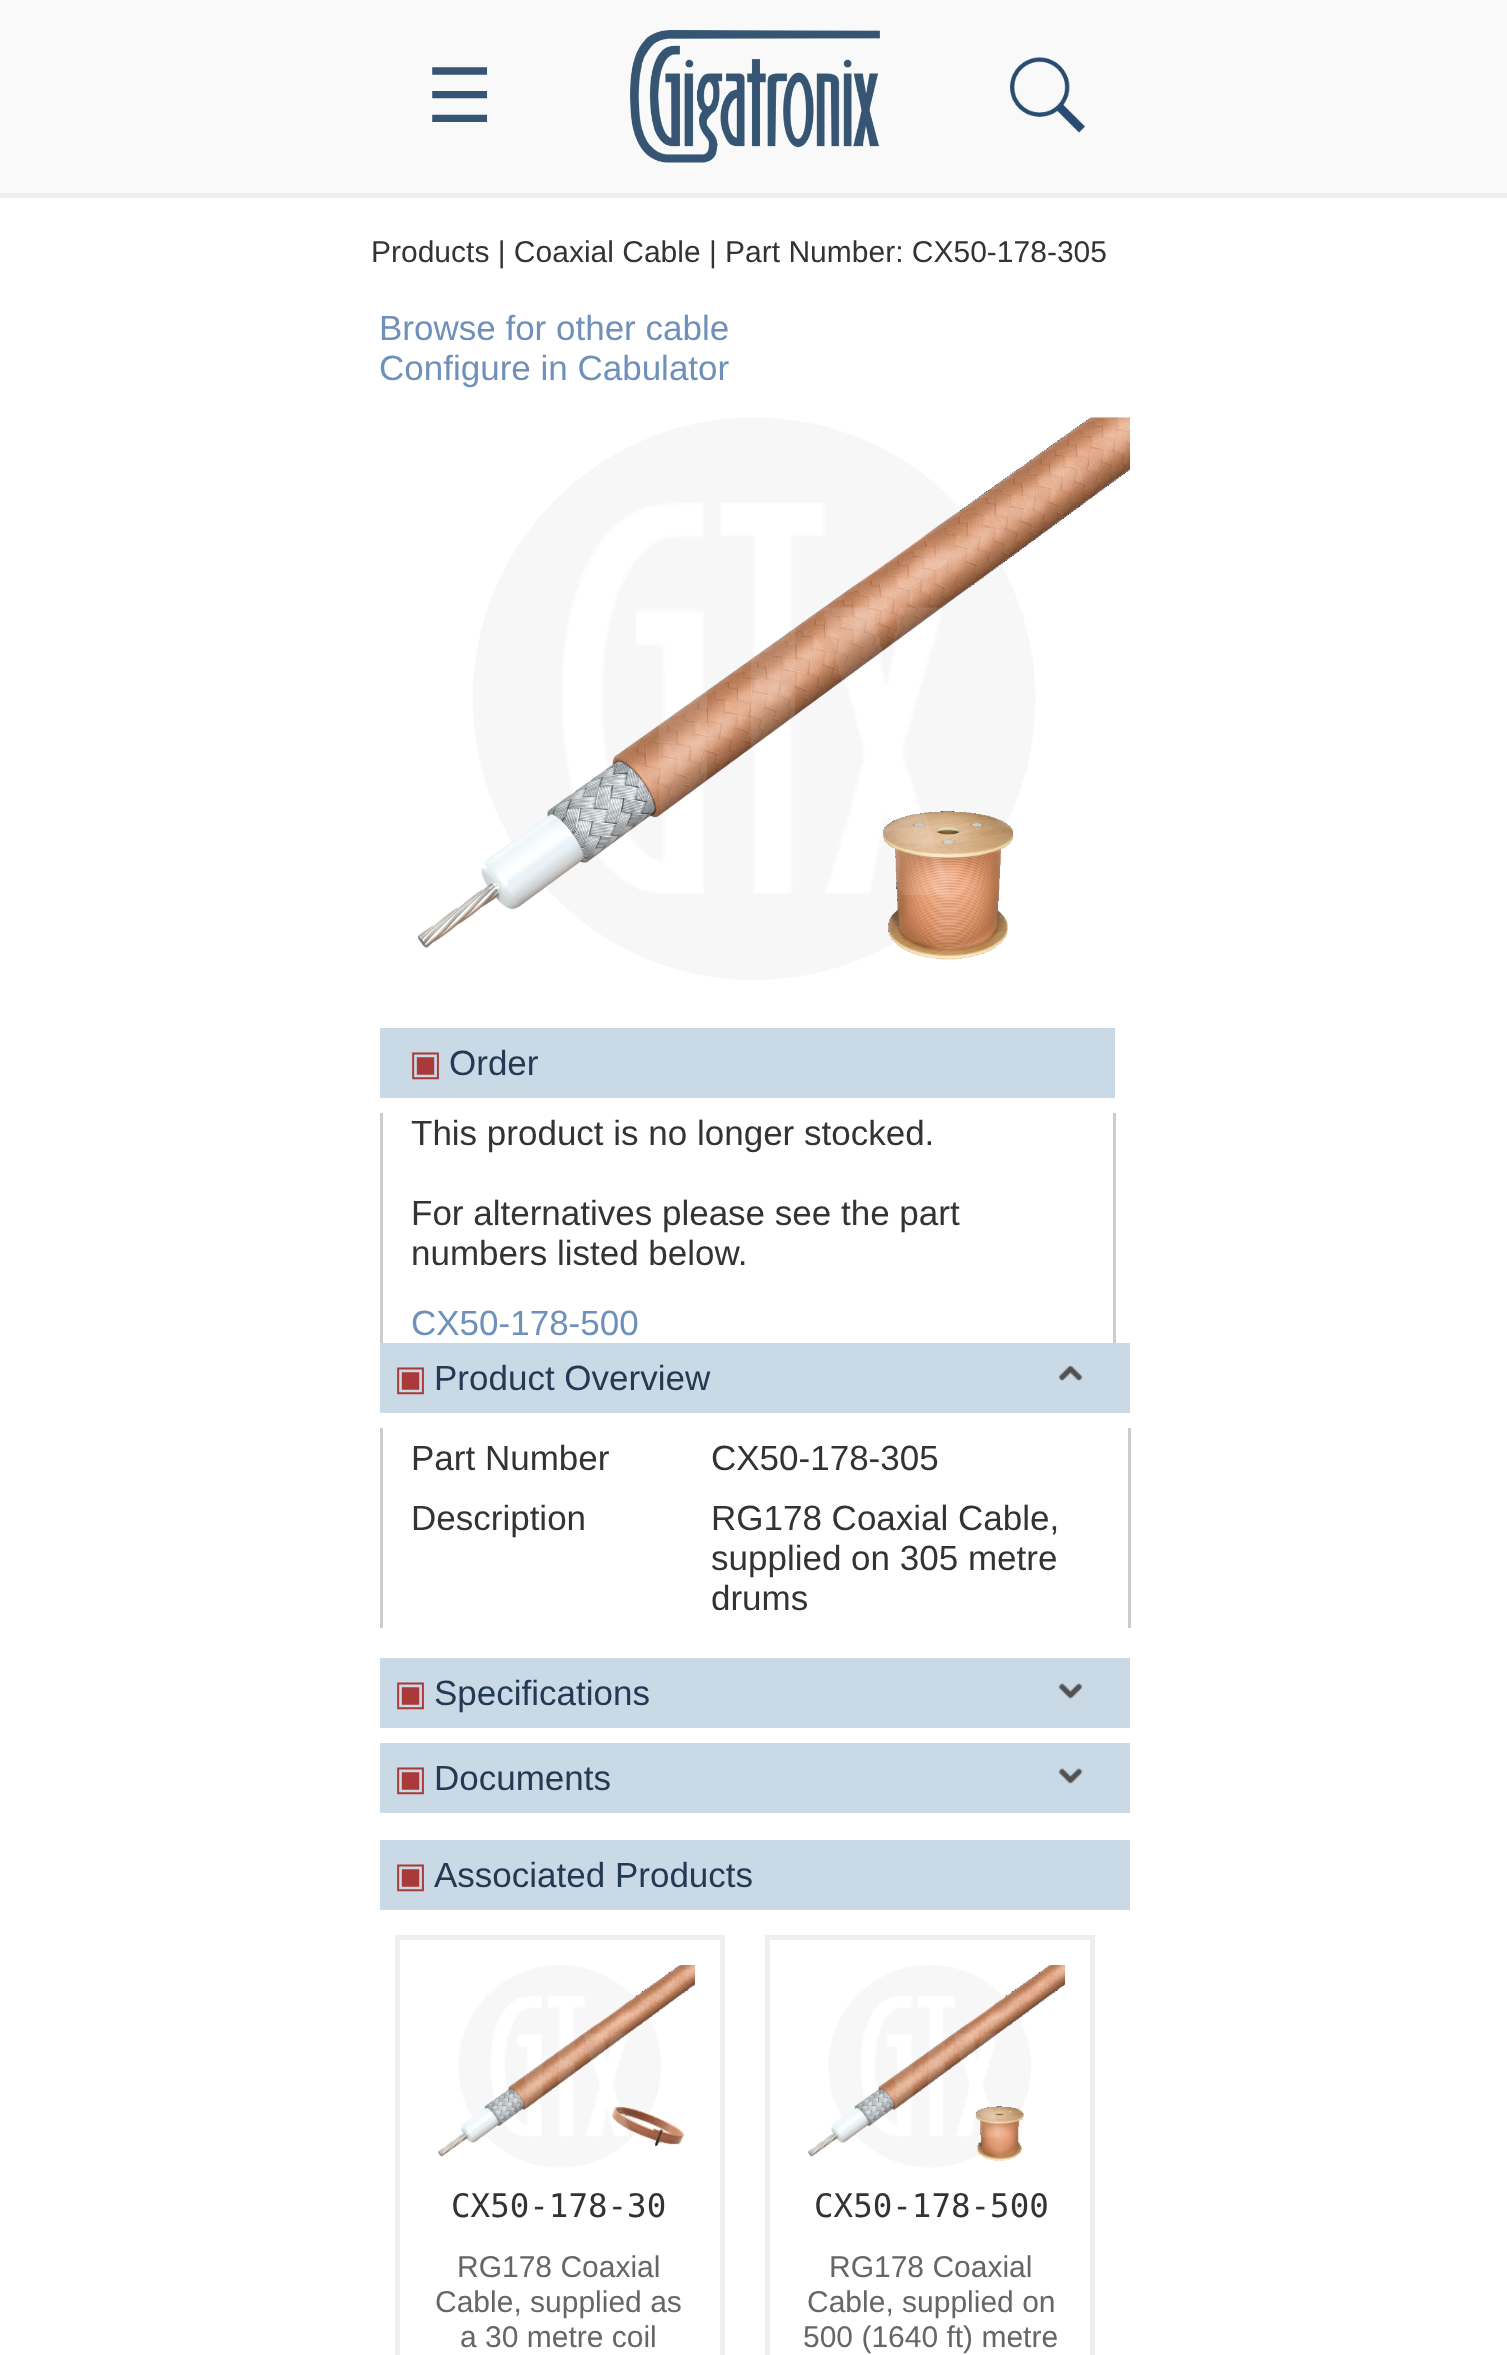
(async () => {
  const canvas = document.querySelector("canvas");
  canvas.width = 1507;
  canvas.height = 2355;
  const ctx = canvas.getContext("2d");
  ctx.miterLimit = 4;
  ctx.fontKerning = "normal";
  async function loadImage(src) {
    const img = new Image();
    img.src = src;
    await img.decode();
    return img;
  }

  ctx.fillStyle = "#ffffff";
  ctx.fillRect(0, 0, 1507, 2355);
  ctx.fillStyle = "#f9f9f9";
  ctx.fillRect(0, 0, 1507, 193);
  ctx.fillStyle = "#eeeeee";
  ctx.fillRect(0, 193, 1507, 5);
  ctx.drawImage(await loadImage("img/1.png"), 630, 30, 250, 133);
  ctx.drawImage(await loadImage("img/2.png"), 1010, 57, 75, 76);
  ctx.drawImage(await loadImage("img/3.png"), 417, 417, 713, 563);
  for (const [x, y, w, h, color] of [
    [380, 1028, 735, 70, "#c9d9e5"],
    [1113, 1113, 3, 230, "#cccccc"],
    [380, 1113, 3, 230, "#cccccc"],
    [380, 1343, 750, 70, "#c9d9e5"],
  ]) {
    ctx.fillStyle = color;
    ctx.fillRect(x, y, w, h);
  }
  ctx.drawImage(await loadImage("img/4.png"), 1058, 1365, 25, 16);
  for (const [x, y, w, h, color] of [
    [1128, 1428, 3, 200, "#cccccc"],
    [380, 1428, 3, 200, "#cccccc"],
    [380, 1658, 750, 70, "#c9d9e5"],
  ]) {
    ctx.fillStyle = color;
    ctx.fillRect(x, y, w, h);
  }
  ctx.drawImage(await loadImage("img/5.png"), 1058, 1683, 25, 16);
  ctx.fillRect(380, 1743, 750, 70);
  ctx.drawImage(await loadImage("img/5.png"), 1058, 1768, 25, 16);
  ctx.fillRect(380, 1840, 750, 70);
  ctx.strokeStyle = "#eeeeee";
  ctx.lineWidth = 5;
  ctx.strokeRect(397.5, 1937.5, 325, 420);
  ctx.drawImage(await loadImage("img/6.png"), 438, 1965, 257, 203);
  ctx.strokeRect(767.5, 1937.5, 325, 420);
  ctx.drawImage(await loadImage("img/7.png"), 808, 1965, 257, 203);
  ctx.font = "75px DejaVu Sans";
  ctx.fillStyle = "#365473";
  ctx.fillText("☰", 426, 122);
  ctx.font = "30px Liberation Sans";
  ctx.fillStyle = "#333333";
  ctx.fillText("Products | Coaxial Cable | Part Number: CX50-178-305", 371, 262);
  ctx.font = "35px Liberation Sans";
  ctx.fillStyle = "#6f90ba";
  ctx.fillText("Browse for other cable", 379, 340);
  ctx.fillText("Configure in Cabulator", 379, 380);
  ctx.font = "35px DejaVu Sans";
  ctx.fillStyle = "#aa3939";
  ctx.fillText("▣", 409, 1075);
  ctx.font = "35px Liberation Sans";
  ctx.fillStyle = "#243a54";
  ctx.fillText("Order", 449, 1075);
  ctx.fillStyle = "#333333";
  for (const [text, x, y] of [
    ["This product is no longer stocked.", 411, 1145],
    ["For alternatives please see the part", 411, 1225],
    ["numbers listed below.", 411, 1265],
  ]) {
    ctx.fillText(text, x, y);
  }
  ctx.fillStyle = "#6f90ba";
  ctx.fillText("CX50-178-500", 411, 1335);
  ctx.font = "35px DejaVu Sans";
  ctx.fillStyle = "#aa3939";
  ctx.fillText("▣", 394, 1390);
  ctx.font = "35px Liberation Sans";
  ctx.fillStyle = "#243a54";
  ctx.fillText("Product Overview", 434, 1390);
  ctx.fillStyle = "#333333";
  for (const [text, x, y] of [
    ["Part Number", 411, 1470],
    ["CX50-178-305", 711, 1470],
    ["Description", 411, 1530],
    ["RG178 Coaxial Cable,", 711, 1530],
    ["supplied on 305 metre", 711, 1570],
    ["drums", 711, 1610],
  ]) {
    ctx.fillText(text, x, y);
  }
  ctx.font = "35px DejaVu Sans";
  ctx.fillStyle = "#aa3939";
  ctx.fillText("▣", 394, 1705);
  ctx.font = "35px Liberation Sans";
  ctx.fillStyle = "#243a54";
  ctx.fillText("Specifications", 434, 1705);
  ctx.font = "35px DejaVu Sans";
  ctx.fillStyle = "#aa3939";
  ctx.fillText("▣", 394, 1790);
  ctx.font = "35px Liberation Sans";
  ctx.fillStyle = "#243a54";
  ctx.fillText("Documents", 434, 1790);
  ctx.font = "35px DejaVu Sans";
  ctx.fillStyle = "#aa3939";
  ctx.fillText("▣", 394, 1887);
  ctx.font = "35px Liberation Sans";
  ctx.fillStyle = "#243a54";
  ctx.fillText("Associated Products", 434, 1887);
  ctx.font = "32.5px DejaVu Sans Mono";
  ctx.fillStyle = "#333333";
  ctx.fillText("CX50-178-30", 451, 2217);
  ctx.font = "30px Liberation Sans";
  ctx.fillStyle = "#666666";
  for (const [text, x, y] of [
    ["RG178 Coaxial", 457, 2277],
    ["Cable, supplied as", 435, 2312],
    ["a 30 metre coil", 460, 2347],
  ]) {
    ctx.fillText(text, x, y);
  }
  ctx.font = "32.5px DejaVu Sans Mono";
  ctx.fillStyle = "#333333";
  ctx.fillText("CX50-178-500", 814, 2217);
  ctx.font = "30px Liberation Sans";
  ctx.fillStyle = "#666666";
  for (const [text, x, y] of [
    ["RG178 Coaxial", 829, 2277],
    ["Cable, supplied on", 807, 2312],
    ["500 (1640 ft) metre", 803, 2347],
  ]) {
    ctx.fillText(text, x, y);
  }
})();
